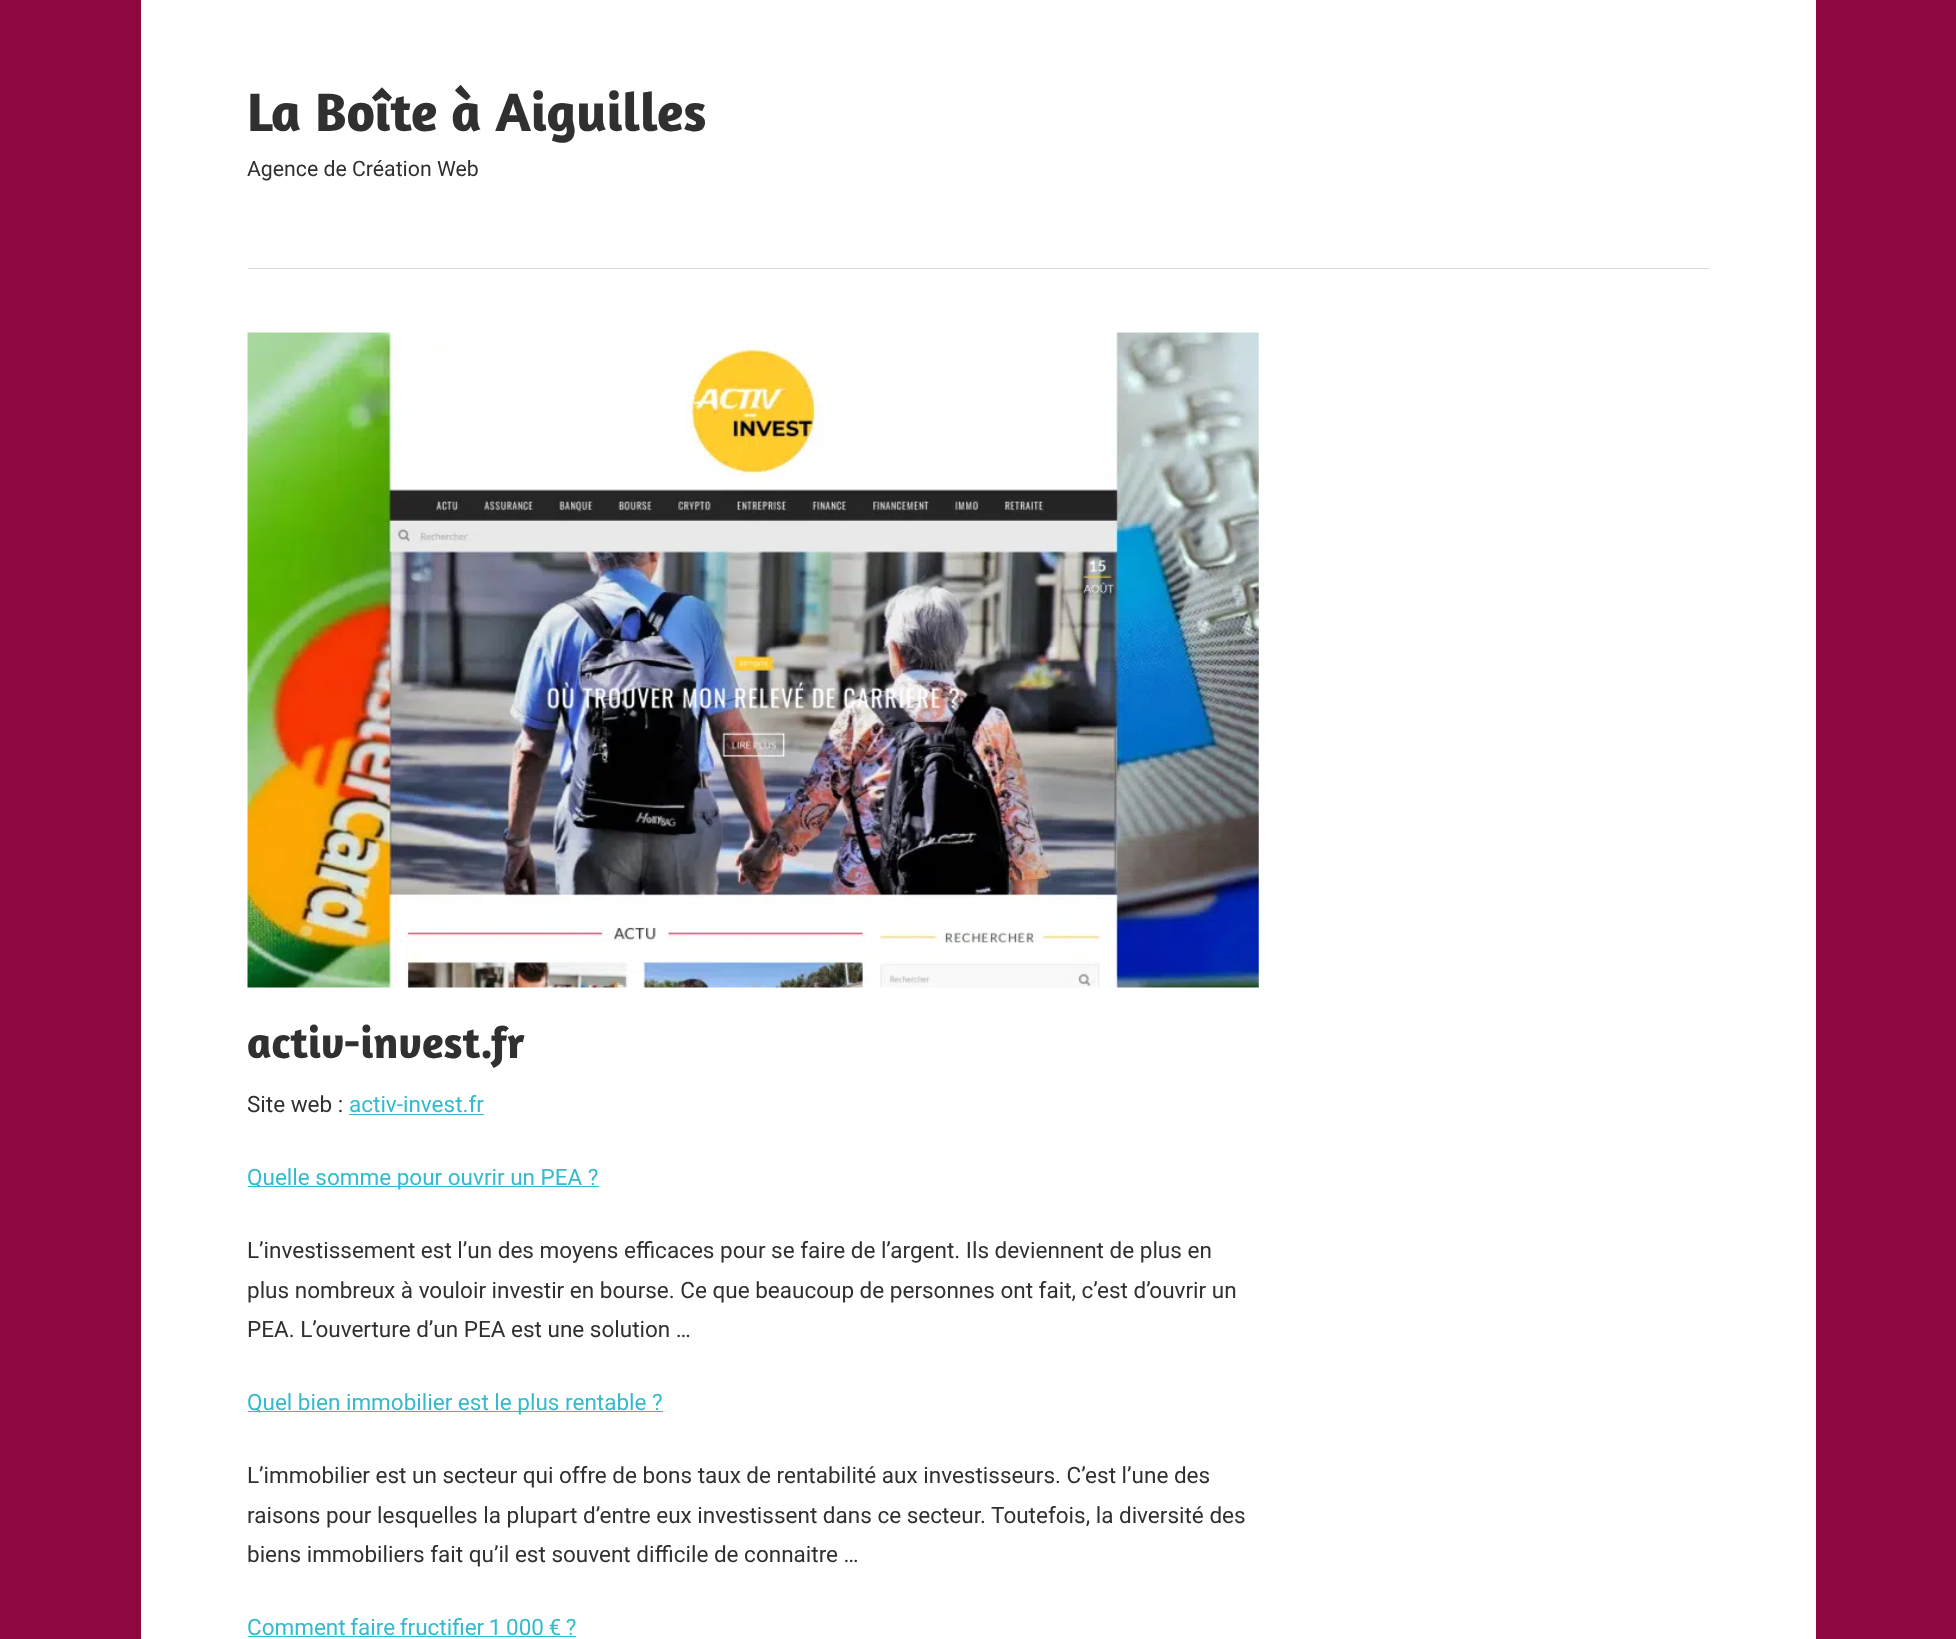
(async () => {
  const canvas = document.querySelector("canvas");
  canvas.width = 1956;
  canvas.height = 1639;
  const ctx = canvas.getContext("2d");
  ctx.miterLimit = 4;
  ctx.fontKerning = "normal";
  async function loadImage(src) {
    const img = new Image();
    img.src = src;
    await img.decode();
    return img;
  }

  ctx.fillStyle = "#900840";
  ctx.fillRect(0, 0, 1956, 1639);
  ctx.fillStyle = "#ffffff";
  ctx.fillRect(141, 0, 1675, 1639);
  ctx.fillStyle = "#d9d9d9";
  ctx.fillRect(248, 268, 1462, 1);
  ctx.drawImage(await loadImage("img/1.png"), 247, 332, 1012, 656);
  for (const [x, y, w, h, color] of [
    [349, 1114, 135, 1, "#33bbcc"],
    [248, 1186, 351, 1, "#33bbcc"],
    [248, 1411, 415, 1, "#33bbcc"],
    [248, 1636, 328, 1, "#33bbcc"],
  ]) {
    ctx.fillStyle = color;
    ctx.fillRect(x, y, w, h);
  }
  ctx.font = "bold 55px Amaranth";
  ctx.fillStyle = "#303030";
  ctx.fillText("La Boîte à Aiguilles", 247, 131);
  ctx.font = "21.25px Roboto";
  ctx.fillText("Agence de Création Web", 247, 176);
  ctx.font = "bold 45px Amaranth";
  ctx.fillText("activ-invest.fr", 247, 1058);
  ctx.font = "22.5px Roboto";
  ctx.fillText("Site web :", 247, 1112);
  ctx.fillStyle = "#33bbcc";
  ctx.fillText("activ-invest.fr", 349, 1112);
  ctx.fillText("Quelle somme pour ouvrir un PEA ?", 247, 1185);
  ctx.fillStyle = "#303030";
  for (const [text, x, y] of [
    ["L’investissement est l’un des moyens efficaces pour se faire de l’argent. Ils deviennent de plus en", 247, 1258],
    ["plus nombreux à vouloir investir en bourse. Ce que beaucoup de personnes ont fait, c’est d’ouvrir un", 247, 1298],
    ["PEA. L’ouverture d’un PEA est une solution …", 247, 1337],
  ]) {
    ctx.fillText(text, x, y);
  }
  ctx.fillStyle = "#33bbcc";
  ctx.fillText("Quel bien immobilier est le plus rentable ?", 247, 1410);
  ctx.fillStyle = "#303030";
  for (const [text, x, y] of [
    ["L’immobilier est un secteur qui offre de bons taux de rentabilité aux investisseurs. C’est l’une des", 247, 1483],
    ["raisons pour lesquelles la plupart d’entre eux investissent dans ce secteur. Toutefois, la diversité des", 247, 1523],
    ["biens immobiliers fait qu’il est souvent difficile de connaitre …", 247, 1562],
  ]) {
    ctx.fillText(text, x, y);
  }
  ctx.wordSpacing = "-1px";
  ctx.fillStyle = "#33bbcc";
  ctx.fillText("Comment faire fructifier 1 000 € ?", 247, 1635);
})();
